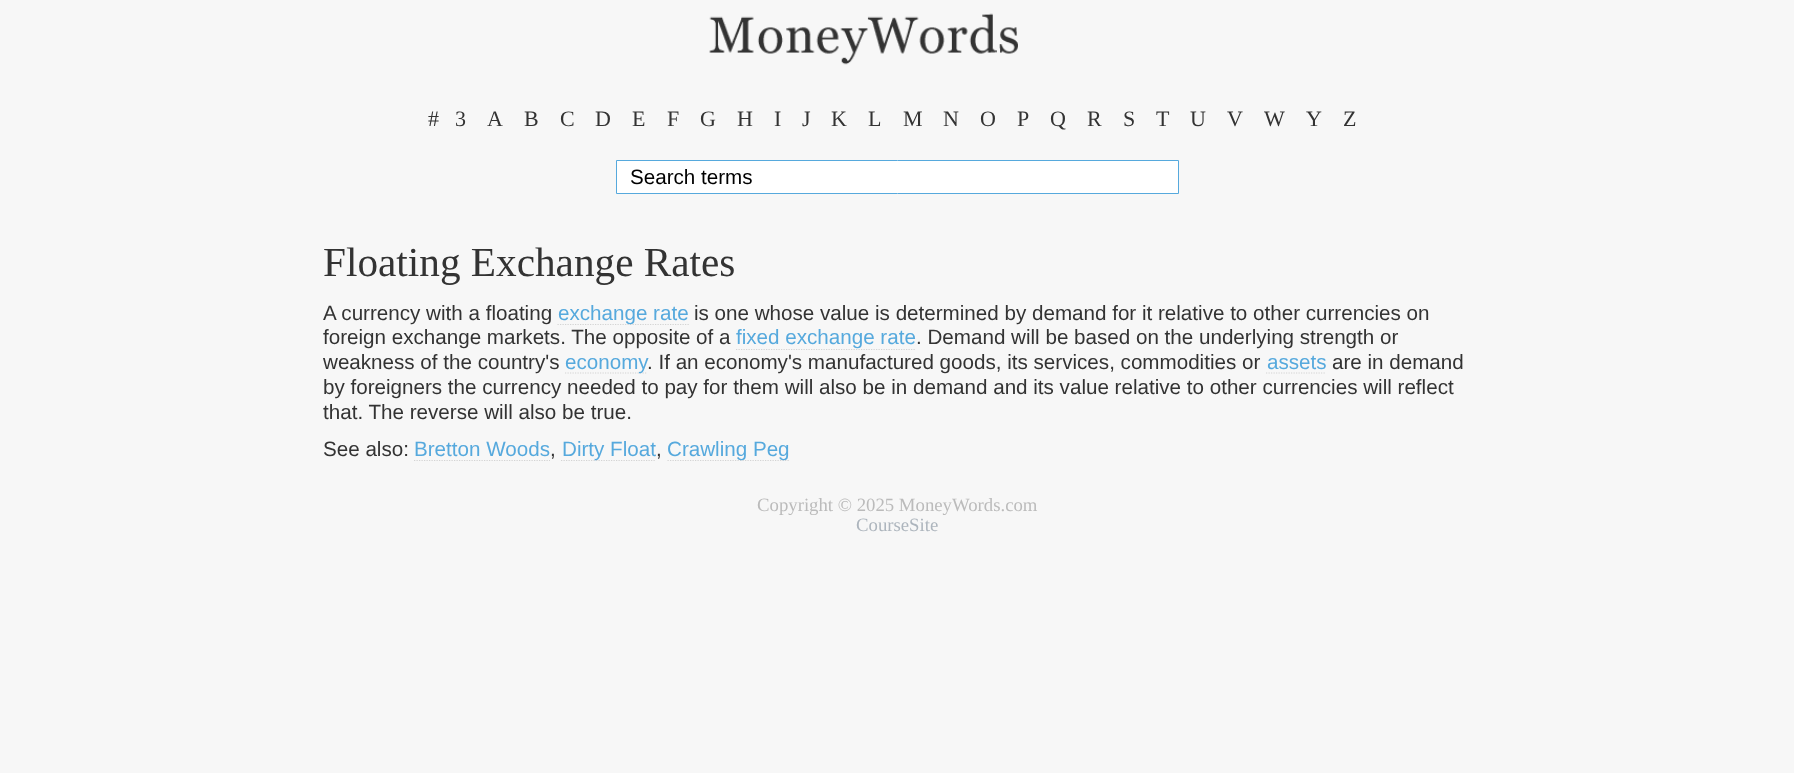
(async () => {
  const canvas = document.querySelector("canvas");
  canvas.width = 1794;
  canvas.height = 773;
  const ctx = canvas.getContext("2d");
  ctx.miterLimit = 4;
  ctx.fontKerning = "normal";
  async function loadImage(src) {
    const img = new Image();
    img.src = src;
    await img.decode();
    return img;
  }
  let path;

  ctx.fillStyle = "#f7f7f7";
  ctx.fillRect(0, 0, 1794, 773);
  ctx.drawImage(await loadImage("img/1.png"), 709, 13, 309, 52);
  ctx.fillStyle = "#ffffff";
  ctx.beginPath();
  ctx.rect(616.5, 160.5, 562, 33);
  ctx.fill();
  ctx.strokeStyle = "#56a9dd";
  ctx.stroke();
  path = new Path2D("M557.5 324.5H689");
  ctx.strokeStyle = "#d3d3d3";
  ctx.lineWidth = 1.2;
  ctx.setLineDash([1.25, 1.25]);
  ctx.stroke(path);
  path = new Path2D("M736 349.5H916");
  ctx.stroke(path);
  path = new Path2D("M565 373H647.5");
  ctx.stroke(path);
  path = new Path2D("M1266 373H1326");
  ctx.stroke(path);
  path = new Path2D("M414 460.5H550");
  ctx.stroke(path);
  path = new Path2D("M561 460.5H656");
  ctx.stroke(path);
  path = new Path2D("M667.5 460.5H790");
  ctx.stroke(path);
  ctx.font = "22px Liberation Serif";
  ctx.fillStyle = "#333333";
  for (const [text, x, y] of [
    ["#", 428, 126],
    ["3", 455, 126],
    ["A", 487, 126],
    ["B", 524, 126],
    ["C", 560, 126],
    ["D", 595, 126],
    ["E", 632, 126],
    ["F", 667, 126],
    ["G", 700, 126],
    ["H", 737, 126],
    ["I", 774, 126],
    ["J", 802, 126],
    ["K", 831, 126],
    ["L", 868, 126],
    ["M", 903, 126],
    ["N", 943, 126],
    ["O", 980, 126],
    ["P", 1017, 126],
    ["Q", 1050, 126],
    ["R", 1087, 126],
    ["S", 1123, 126],
    ["T", 1156, 126],
    ["U", 1190, 126],
    ["V", 1227, 126],
    ["W", 1264, 126],
    ["Y", 1306, 126],
    ["Z", 1343, 126],
  ]) {
    ctx.fillText(text, x, y);
  }
  ctx.font = "20.62px Liberation Sans";
  ctx.fillStyle = "#000000";
  ctx.fillText("Search terms", 630, 184);
  ctx.font = "41.25px Liberation Serif";
  ctx.fillStyle = "#333333";
  ctx.fillText("Floating Exchange Rates", 323, 276);
  ctx.font = "20.62px Liberation Sans";
  ctx.fillText("A currency with a floating", 323, 320);
  ctx.fillStyle = "#56a9dd";
  ctx.fillText("exchange rate", 558, 320);
  ctx.fillStyle = "#333333";
  ctx.fillText("is one whose value is determined by demand for it relative to other currencies on", 694, 320);
  ctx.fillText("foreign exchange markets. The opposite of a", 323, 344);
  ctx.fillStyle = "#56a9dd";
  ctx.fillText("fixed exchange rate", 736, 344);
  ctx.fillStyle = "#333333";
  ctx.fillText(". Demand will be based on the underlying strength or", 916, 344);
  ctx.fillText("weakness of the country's", 323, 369);
  ctx.fillStyle = "#56a9dd";
  ctx.fillText("economy", 565, 369);
  ctx.fillStyle = "#333333";
  ctx.fillText(". If an economy's manufactured goods, its services, commodities or", 647, 369);
  ctx.fillStyle = "#56a9dd";
  ctx.fillText("assets", 1267, 369);
  ctx.fillStyle = "#333333";
  for (const [text, x, y] of [
    ["are in demand", 1332, 369],
    ["by foreigners the currency needed to pay for them will also be in demand and its value relative to other currencies will reflect", 323, 394],
    ["that. The reverse will also be true.", 323, 419],
    ["See also:", 323, 456],
  ]) {
    ctx.fillText(text, x, y);
  }
  ctx.fillStyle = "#56a9dd";
  ctx.fillText("Bretton Woods", 414, 456);
  ctx.fillStyle = "#333333";
  ctx.fillText(",", 550, 456);
  ctx.fillStyle = "#56a9dd";
  ctx.fillText("Dirty Float", 562, 456);
  ctx.fillStyle = "#333333";
  ctx.fillText(",", 656, 456);
  ctx.fillStyle = "#56a9dd";
  ctx.fillText("Crawling Peg", 667, 456);
  ctx.font = "18.75px Liberation Serif";
  ctx.fillStyle = "#bbbbbb";
  ctx.fillText("Copyright © 2025 MoneyWords.com", 757, 511);
  ctx.fillStyle = "#adb5bd";
  ctx.fillText("CourseSite", 856, 531);
})();
